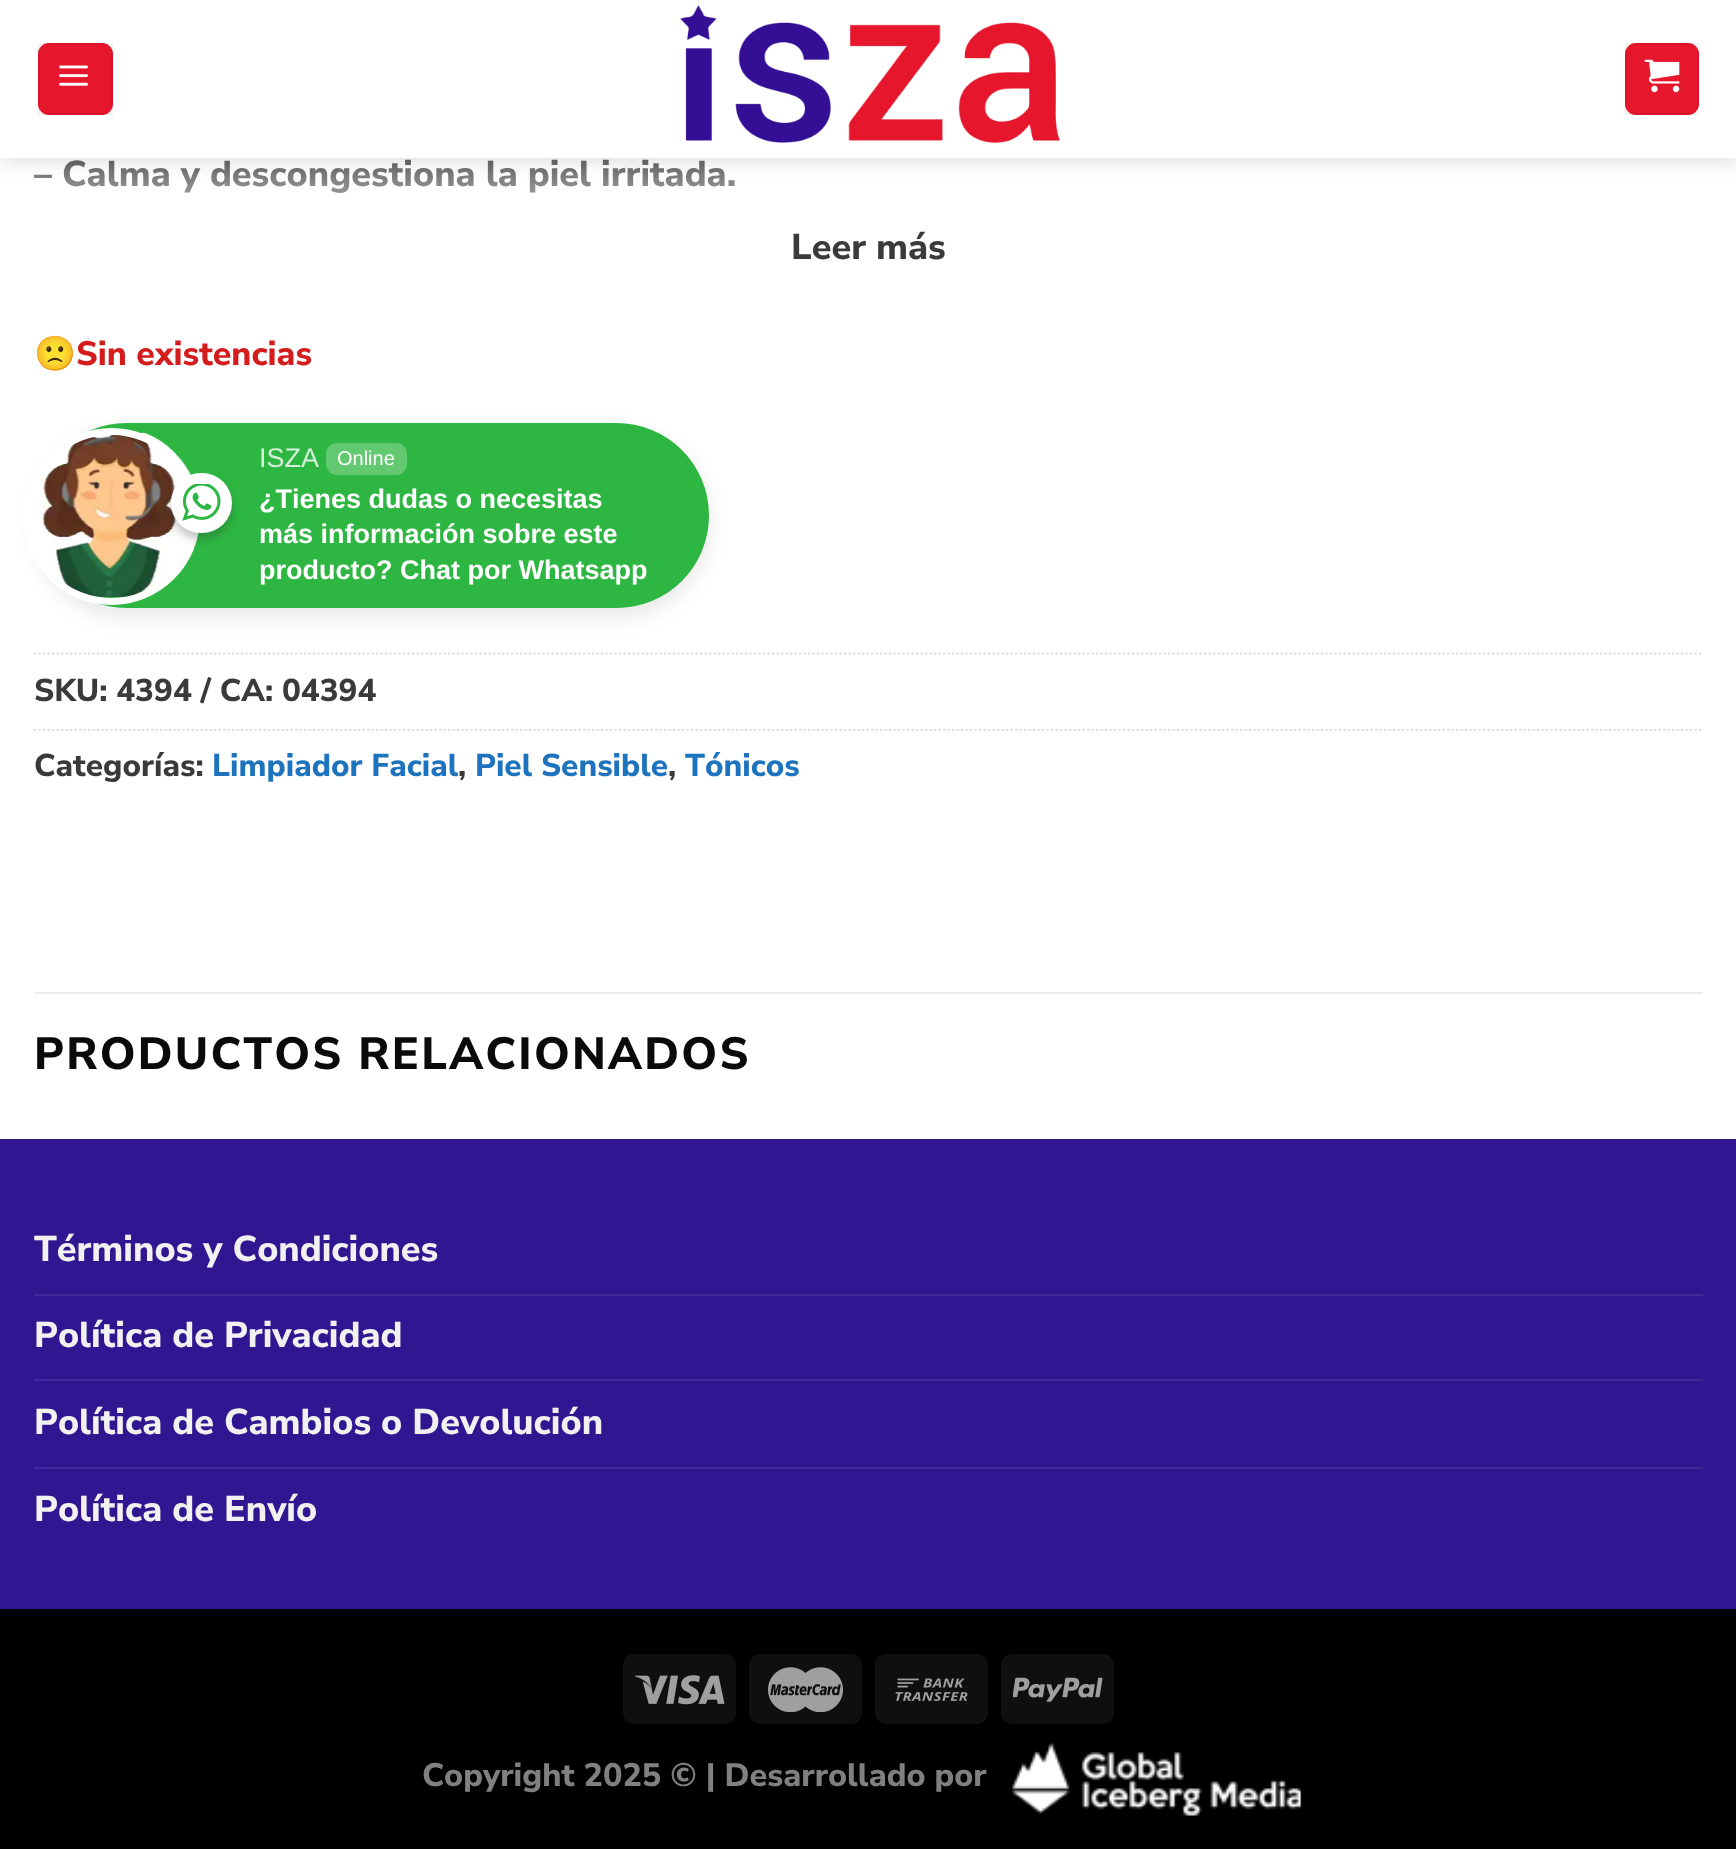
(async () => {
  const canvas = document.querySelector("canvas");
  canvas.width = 1736;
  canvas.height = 1849;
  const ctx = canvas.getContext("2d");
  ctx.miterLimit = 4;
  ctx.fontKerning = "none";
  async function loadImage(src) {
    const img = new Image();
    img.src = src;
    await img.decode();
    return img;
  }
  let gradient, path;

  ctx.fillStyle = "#ffffff";
  ctx.fillRect(0, 0, 1736, 1849);
  ctx.fillStyle = "rgba(32, 32, 37, 0.09)";
  ctx.filter = "blur(9px)";
  ctx.beginPath();
  ctx.roundRect(32, 430, 679, 189, 94.5);
  ctx.fill();
  ctx.filter = "none";
  ctx.fillStyle = "#2db742";
  ctx.beginPath();
  ctx.roundRect(34, 423, 675, 185, 92.5);
  ctx.fill();
  ctx.drawImage(await loadImage("img/4.png"), 29, 432, 165, 166);
  ctx.beginPath();
  ctx.arc(111.5, 516.5, 85, 0, Math.PI * 2);
  ctx.strokeStyle = "#ffffff";
  ctx.lineWidth = 7;
  ctx.stroke();
  ctx.fillStyle = "rgba(39, 38, 38, 0.26)";
  ctx.filter = "blur(4.5px)";
  ctx.beginPath();
  ctx.roundRect(171, 479, 61, 61, 30.5);
  ctx.fill();
  ctx.filter = "none";
  ctx.fillStyle = "#ffffff";
  ctx.beginPath();
  ctx.roundRect(171, 473, 61, 60, 30);
  ctx.fill();
  ctx.drawImage(await loadImage("img/5.png"), 182, 484, 39, 37);
  ctx.fillStyle = "#62c971";
  ctx.beginPath();
  ctx.roundRect(326, 443, 81, 32, 11);
  ctx.fill();
  path = new Path2D("M34 653.5H1703");
  ctx.strokeStyle = "#dddddd";
  ctx.lineWidth = 2.2;
  ctx.setLineDash([2.25, 2.25]);
  ctx.stroke(path);
  path = new Path2D("M34 730H1703");
  ctx.stroke(path);
  for (const [x, y, w, h, color] of [
    [34, 992, 1669, 2, "#ececec"],
    [0, 1141, 1736, 468, "#301691"],
    [0, 1139, 1736, 2, "#2e158a"],
    [34, 1294, 1669, 2, "#41299a"],
    [34, 1379, 1669, 2, "#41299a"],
    [34, 1467, 1669, 2, "#41299a"],
    [0, 1609, 1736, 240, "#000000"],
  ]) {
    ctx.fillStyle = color;
    ctx.fillRect(x, y, w, h);
  }
  ctx.fillStyle = "#0f0f0f";
  ctx.beginPath();
  ctx.roundRect(623, 1654, 113, 70, 11);
  ctx.fill();
  ctx.drawImage(await loadImage("img/6.png"), 635, 1675, 90, 30);
  ctx.beginPath();
  ctx.roundRect(749, 1654, 113, 70, 11);
  ctx.fill();
  ctx.drawImage(await loadImage("img/7.png"), 768, 1667, 75, 45);
  ctx.beginPath();
  ctx.roundRect(875, 1654, 113, 70, 11);
  ctx.fill();
  ctx.drawImage(await loadImage("img/8.png"), 895, 1678, 73, 23);
  ctx.beginPath();
  ctx.roundRect(1001, 1654, 113, 70, 11);
  ctx.fill();
  ctx.drawImage(await loadImage("img/9.png"), 1013, 1677, 90, 25);
  ctx.drawImage(await loadImage("img/10.png"), 1012, 1743, 290, 73);
  ctx.save();
  ctx.beginPath();
  ctx.rect(34, 0, 1669, 266);
  ctx.clip();
  ctx.font = "800 36px Nunito Sans";
  ctx.fillStyle = "#3a3a3a";
  ctx.fillText("– Calma y descongestiona la piel irritada.", 34, 186);
  ctx.restore();
  gradient = ctx.createLinearGradient(869, 130, 869, 266);
  gradient.addColorStop(0, "rgba(255, 255, 255, 0)");
  gradient.addColorStop(1, "#ffffff");
  ctx.fillStyle = gradient;
  ctx.fillRect(34, 159, 700, 34);
  ctx.save();
  path = new Path2D("M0 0H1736V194H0ZM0 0H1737V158H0Z");
  ctx.clip(path, "evenodd");
  ctx.fillStyle = "rgba(0, 0, 0, 0.15)";
  ctx.filter = "blur(11px)";
  ctx.beginPath();
  ctx.rect(2, 2, 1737, 158);
  ctx.fill();
  ctx.filter = "none";
  ctx.restore();
  ctx.fillStyle = "#e6172c";
  ctx.beginPath();
  ctx.roundRect(1625, 43, 74, 72, 11);
  ctx.fill();
  ctx.strokeStyle = "rgba(0, 0, 0, 0.05)";
  ctx.lineWidth = 2;
  ctx.setLineDash([]);
  ctx.strokeRect(1626, 44, 72, 70);
  ctx.drawImage(await loadImage("img/3.png"), 1644, 59, 36, 34);
  ctx.beginPath();
  ctx.roundRect(38, 43, 75, 72, 11);
  ctx.fill();
  ctx.strokeRect(39, 44, 73, 70);
  ctx.drawImage(await loadImage("img/1.png"), 59, 65, 29, 21);
  ctx.drawImage(await loadImage("img/2.png"), 680, 5, 380, 138);
  ctx.fillStyle = "rgba(255, 255, 255, 0.9)";
  ctx.fillRect(0, 157, 1736, 1);
  ctx.font = "800 36px Nunito Sans";
  ctx.fillStyle = "#3a3a3a";
  ctx.fillText("Leer más", 791, 259);
  ctx.font = "bold 33.75px Noto Color Emoji";
  ctx.fillStyle = "#d41c1c";
  ctx.fillText("🙁", 34, 365);
  ctx.font = "800 33.75px Nunito Sans";
  ctx.fillText("Sin existencias", 76, 365);
  ctx.font = "27px Liberation Sans";
  ctx.fillStyle = "#d5f0d9";
  ctx.fillText("ISZA", 259, 467);
  ctx.font = "20px Liberation Sans";
  ctx.fillStyle = "#ffffff";
  ctx.fillText("Online", 337, 465);
  ctx.font = "bold 27px Liberation Sans";
  for (const [text, x, y] of [
    ["¿Tienes dudas o necesitas", 259, 508],
    ["más información sobre este", 259, 543],
    ["producto? Chat por Whatsapp", 259, 579],
  ]) {
    ctx.fillText(text, x, y);
  }
  ctx.font = "800 31.5px Nunito Sans";
  ctx.fillStyle = "#3a3a3a";
  ctx.fillText("SKU: 4394 / CA: 04394", 34, 701);
  ctx.fillText("Categorías:", 34, 776);
  ctx.fillStyle = "#1e73be";
  ctx.fillText("Limpiador Facial", 212, 776);
  ctx.fillStyle = "#3a3a3a";
  ctx.fillText(",", 458, 776);
  ctx.fillStyle = "#1e73be";
  ctx.fillText("Piel Sensible", 475, 776);
  ctx.fillStyle = "#3a3a3a";
  ctx.fillText(",", 668, 776);
  ctx.fillStyle = "#1e73be";
  ctx.fillText("Tónicos", 685, 776);
  ctx.letterSpacing = "2.25px";
  ctx.font = "800 45px Nunito Sans";
  ctx.fillStyle = "#0a0a0a";
  ctx.fillText("PRODUCTOS RELACIONADOS", 34, 1069);
  ctx.letterSpacing = "0px";
  ctx.font = "800 36px Nunito Sans";
  ctx.fillStyle = "#f1f1f1";
  for (const [text, x, y] of [
    ["Términos y Condiciones", 34, 1261],
    ["Política de Privacidad", 34, 1347],
    ["Política de Cambios o Devolución", 34, 1434],
    ["Política de Envío", 34, 1521],
  ]) {
    ctx.fillText(text, x, y);
  }
  ctx.font = "800 32.4px Nunito Sans";
  ctx.fillStyle = "#808080";
  ctx.fillText("Copyright 2025 © | Desarrollado por", 422, 1786);
})();
